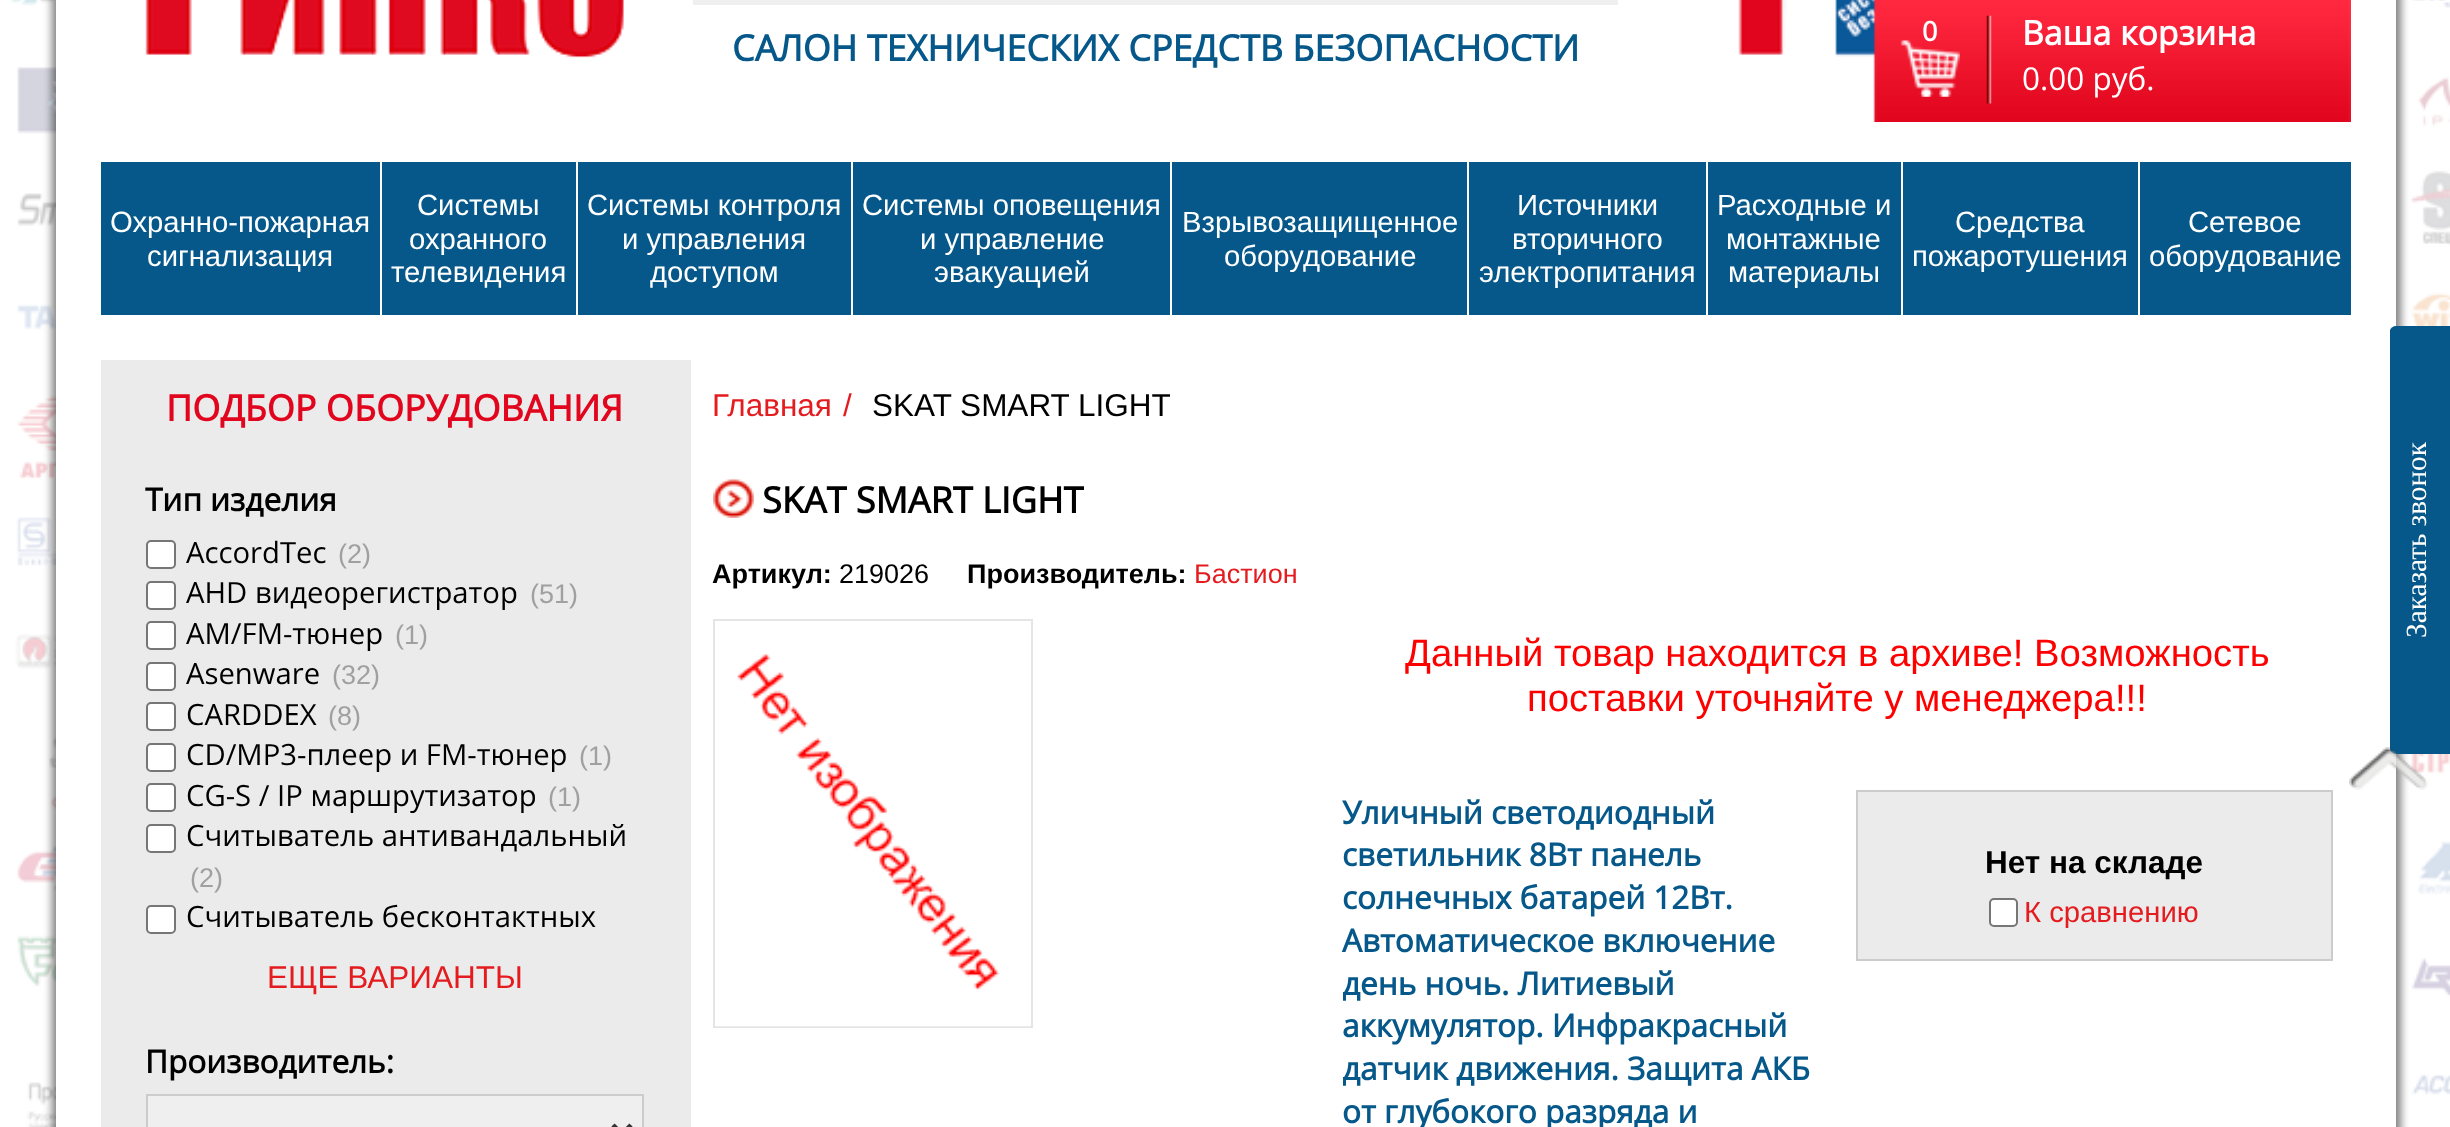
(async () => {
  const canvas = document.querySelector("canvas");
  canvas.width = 2450;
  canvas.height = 1127;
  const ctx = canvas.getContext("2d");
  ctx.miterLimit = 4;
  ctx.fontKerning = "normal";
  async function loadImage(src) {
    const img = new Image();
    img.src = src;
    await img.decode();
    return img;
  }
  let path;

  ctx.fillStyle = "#ffffff";
  ctx.fillRect(0, 0, 2450, 1127);
  ctx.drawImage(await loadImage("img/1.png"), 11, 0, 2439, 1127);
  ctx.fillStyle = "rgba(0, 0, 0, 0.5)";
  ctx.filter = "blur(4.5px)";
  ctx.beginPath();
  ctx.rect(79, -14, 2322, 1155);
  ctx.fill();
  ctx.filter = "none";
  ctx.filter = "blur(4.5px)";
  ctx.beginPath();
  ctx.rect(52, -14, 2322, 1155);
  ctx.fill();
  ctx.filter = "none";
  ctx.fillStyle = "#ffffff";
  ctx.fillRect(56, 0, 2340, 1127);
  ctx.drawImage(await loadImage("img/6.png"), 1738, 0, 139, 57);
  ctx.drawImage(await loadImage("img/2.png"), 1873, 0, 478, 122);
  ctx.drawImage(await loadImage("img/3.png"), 1986, 15, 6, 89);
  ctx.drawImage(await loadImage("img/5.png"), 145, 0, 479, 58);
  for (const [x, y, w, h, color] of [
    [693, 0, 925, 5, "#efefef"],
    [101, 162, 2250, 153, "#055889"],
    [380, 162, 2, 153, "#ffffff"],
    [576, 162, 2, 153, "#ffffff"],
    [851, 162, 2, 153, "#ffffff"],
    [1170, 162, 2, 153, "#ffffff"],
    [1467, 162, 2, 153, "#ffffff"],
    [1706, 162, 2, 153, "#ffffff"],
    [1901, 162, 2, 153, "#ffffff"],
    [2138, 162, 2, 153, "#ffffff"],
    [101, 360, 590, 767, "#ebebeb"],
  ]) {
    ctx.fillStyle = color;
    ctx.fillRect(x, y, w, h);
  }
  ctx.fillStyle = "#ffffff";
  ctx.beginPath();
  ctx.roundRect(147, 541, 28, 27, 4);
  ctx.fill();
  ctx.strokeStyle = "#767676";
  ctx.lineWidth = 2;
  ctx.stroke();
  ctx.beginPath();
  ctx.roundRect(147, 582, 28, 27, 4);
  ctx.fill();
  ctx.stroke();
  ctx.beginPath();
  ctx.roundRect(147, 622, 28, 27, 4);
  ctx.fill();
  ctx.stroke();
  ctx.beginPath();
  ctx.roundRect(147, 663, 28, 27, 4);
  ctx.fill();
  ctx.stroke();
  ctx.beginPath();
  ctx.roundRect(147, 703, 28, 27, 4);
  ctx.fill();
  ctx.stroke();
  ctx.beginPath();
  ctx.roundRect(147, 744, 28, 27, 4);
  ctx.fill();
  ctx.stroke();
  ctx.beginPath();
  ctx.roundRect(147, 784, 28, 27, 4);
  ctx.fill();
  ctx.stroke();
  ctx.beginPath();
  ctx.roundRect(147, 825, 28, 27, 4);
  ctx.fill();
  ctx.stroke();
  ctx.beginPath();
  ctx.roundRect(147, 906, 28, 27, 4);
  ctx.fill();
  ctx.stroke();
  ctx.fillStyle = "#efefef";
  ctx.beginPath();
  ctx.rect(147, 1095, 496, 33);
  ctx.fill();
  ctx.strokeStyle = "#cccccc";
  ctx.stroke();
  path = new Path2D("M613 1125L622 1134L631 1125");
  ctx.strokeStyle = "#333333";
  ctx.lineWidth = 4.5;
  ctx.stroke(path);
  ctx.drawImage(await loadImage("img/7.png"), 713, 479, 41, 39);
  ctx.strokeStyle = "#e5e5e5";
  ctx.lineWidth = 2;
  ctx.strokeRect(714, 620, 318, 407);
  ctx.drawImage(await loadImage("img/8.png"), 716, 653, 314, 374);
  ctx.fillStyle = "#ebebeb";
  ctx.beginPath();
  ctx.rect(1857, 791, 475, 169);
  ctx.fill();
  ctx.strokeStyle = "#cccccc";
  ctx.stroke();
  ctx.fillStyle = "#ffffff";
  ctx.beginPath();
  ctx.roundRect(1990, 899, 27, 27, 4);
  ctx.fill();
  ctx.strokeStyle = "#767676";
  ctx.stroke();
  ctx.fillStyle = "#055889";
  path = new Path2D("M2390 750V330C2391 328 2393 326 2396 326H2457V754H2396C2393 754 2391 752 2390 750Z");
  ctx.fill(path);
  ctx.drawImage(await loadImage("img/9.png"), 2349, 747, 79, 43);
  ctx.font = "bold 27px Open Sans";
  ctx.fillStyle = "#ffffff";
  ctx.fillText("0", 1922, 41);
  ctx.drawImage(await loadImage("img/4.png"), 1900, 40, 60, 57);
  ctx.font = "bold 33.75px Open Sans";
  ctx.fillText("Ваша корзина", 2022, 45);
  ctx.font = "31.5px Open Sans";
  ctx.fillText("0.00 руб.", 2022, 90);
  ctx.font = "bold 36px Open Sans";
  ctx.fillStyle = "#055889";
  ctx.fillText("САЛОН ТЕХНИЧЕСКИХ СРЕДСТВ БЕЗОПАСНОСТИ", 732, 61);
  ctx.font = "29.25px Liberation Sans";
  ctx.fillStyle = "#ffffff";
  for (const [text, x, y] of [
    ["Охранно-пожарная", 110, 232],
    ["сигнализация", 147, 266],
    ["Системы", 417, 215],
    ["охранного", 409, 249],
    ["телевидения", 391, 282],
    ["Системы контроля", 587, 215],
    ["и управления", 622, 249],
    ["доступом", 650, 282],
    ["Системы оповещения", 862, 215],
    ["и управление", 920, 249],
    ["эвакуацией", 934, 282],
    ["Взрывозащищенное", 1182, 232],
    ["оборудование", 1224, 266],
    ["Источники", 1517, 215],
    ["вторичного", 1512, 249],
    ["электропитания", 1479, 282],
    ["Расходные и", 1717, 215],
    ["монтажные", 1726, 249],
    ["материалы", 1728, 282],
    ["Средства", 1955, 232],
    ["пожаротушения", 1912, 266],
    ["Сетевое", 2188, 232],
    ["оборудование", 2149, 266],
  ]) {
    ctx.fillText(text, x, y);
  }
  ctx.font = "bold 36px Open Sans";
  ctx.fillStyle = "#e1061e";
  ctx.fillText("ПОДБОР ОБОРУДОВАНИЯ", 166, 421);
  ctx.font = "bold 31.5px Open Sans";
  ctx.fillStyle = "#000000";
  ctx.fillText("Тип изделия", 145, 511);
  ctx.font = "29.25px Open Sans";
  ctx.fillText("AccordTec", 186, 563);
  ctx.font = "27px Liberation Sans";
  ctx.fillStyle = "#a0a0a0";
  ctx.fillText("(2)", 338, 563);
  ctx.font = "29.25px Open Sans";
  ctx.fillStyle = "#000000";
  ctx.fillText("AHD видеорегистратор", 186, 603);
  ctx.font = "27px Liberation Sans";
  ctx.fillStyle = "#a0a0a0";
  ctx.fillText("(51)", 530, 603);
  ctx.font = "29.25px Open Sans";
  ctx.fillStyle = "#000000";
  ctx.fillText("AM/FM-тюнер", 186, 644);
  ctx.font = "27px Liberation Sans";
  ctx.fillStyle = "#a0a0a0";
  ctx.fillText("(1)", 395, 644);
  ctx.font = "29.25px Open Sans";
  ctx.fillStyle = "#000000";
  ctx.fillText("Asenware", 186, 684);
  ctx.font = "27px Liberation Sans";
  ctx.fillStyle = "#a0a0a0";
  ctx.fillText("(32)", 332, 684);
  ctx.font = "29.25px Open Sans";
  ctx.fillStyle = "#000000";
  ctx.fillText("CARDDEX", 186, 725);
  ctx.font = "27px Liberation Sans";
  ctx.fillStyle = "#a0a0a0";
  ctx.fillText("(8)", 328, 725);
  ctx.font = "29.25px Open Sans";
  ctx.fillStyle = "#000000";
  ctx.fillText("CD/MP3-плеер и FM-тюнер", 186, 765);
  ctx.font = "27px Liberation Sans";
  ctx.fillStyle = "#a0a0a0";
  ctx.fillText("(1)", 579, 765);
  ctx.font = "29.25px Open Sans";
  ctx.fillStyle = "#000000";
  ctx.fillText("CG-S / IP маршрутизатор", 186, 806);
  ctx.font = "27px Liberation Sans";
  ctx.fillStyle = "#a0a0a0";
  ctx.fillText("(1)", 548, 806);
  ctx.font = "29.25px Open Sans";
  ctx.fillStyle = "#000000";
  ctx.fillText("Cчитыватель антивандальный", 186, 846);
  ctx.font = "27px Liberation Sans";
  ctx.fillStyle = "#a0a0a0";
  ctx.fillText("(2)", 190, 887);
  ctx.font = "29.25px Open Sans";
  ctx.fillStyle = "#000000";
  ctx.fillText("Cчитыватель бесконтактных", 186, 927);
  ctx.font = "31.5px Liberation Sans";
  ctx.fillStyle = "#e41b1f";
  ctx.fillText("ЕЩЕ ВАРИАНТЫ", 267, 988);
  ctx.font = "bold 31.5px Open Sans";
  ctx.fillStyle = "#000000";
  ctx.fillText("Производитель:", 145, 1073);
  ctx.font = "31.5px Liberation Sans";
  ctx.fillStyle = "#e41b1f";
  ctx.fillText("Главная", 712, 416);
  ctx.fillText("/", 843, 416);
  ctx.fillStyle = "#000000";
  ctx.fillText("SKAT SMART LIGHT", 872, 416);
  ctx.font = "bold 36px Open Sans";
  ctx.fillText("SKAT SMART LIGHT", 762, 513);
  ctx.font = "bold 27px Liberation Sans";
  ctx.fillText("Артикул:", 712, 583);
  ctx.font = "27px Liberation Sans";
  ctx.fillText("219026", 839, 583);
  ctx.font = "bold 27px Liberation Sans";
  ctx.fillText("Производитель:", 967, 583);
  ctx.font = "27px Liberation Sans";
  ctx.fillStyle = "#e41b1f";
  ctx.fillText("Бастион", 1194, 583);
  ctx.font = "38.25px Liberation Sans";
  ctx.fillStyle = "#ff0000";
  ctx.fillText("Данный товар находится в архиве! Возможность", 1405, 666);
  ctx.fillText("поставки уточняйте у менеджера!!!", 1527, 711);
  ctx.font = "bold 31.5px Open Sans";
  ctx.fillStyle = "#055889";
  for (const [text, x, y] of [
    ["Уличный светодиодный", 1342, 824],
    ["светильник 8Вт панель", 1342, 866],
    ["солнечных батарей 12Вт.", 1342, 909],
    ["Автоматическое включение", 1342, 952],
  ]) {
    ctx.fillText(text, x, y);
  }
  ctx.save();
  ctx.beginPath();
  ctx.rect(1343, 790, 495, 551);
  ctx.clip();
  ctx.fillText("день ночь. Литиевый", 1342, 995);
  ctx.restore();
  ctx.fillText("аккумулятор. Инфракрасный", 1342, 1037);
  ctx.save();
  ctx.beginPath();
  ctx.rect(1343, 790, 495, 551);
  ctx.clip();
  ctx.fillText("датчик движения. Защита АКБ", 1342, 1080);
  ctx.restore();
  ctx.fillText("от глубокого разряда и", 1342, 1123);
  ctx.font = "bold 31.5px Liberation Sans";
  ctx.fillStyle = "#000000";
  ctx.fillText("Нет на складе", 1985, 873);
  ctx.font = "29.25px Liberation Sans";
  ctx.fillStyle = "#e41b1f";
  ctx.fillText("К сравнению", 2024, 922);
  ctx.font = "29.25px Liberation Serif";
  ctx.fillStyle = "#ffffff";
  ctx.save();
  ctx.translate(2426, 638);
  ctx.rotate(-90 * Math.PI / 180);
  ctx.fillText("Заказать звонок", 0, 0);
  ctx.restore();
})();
